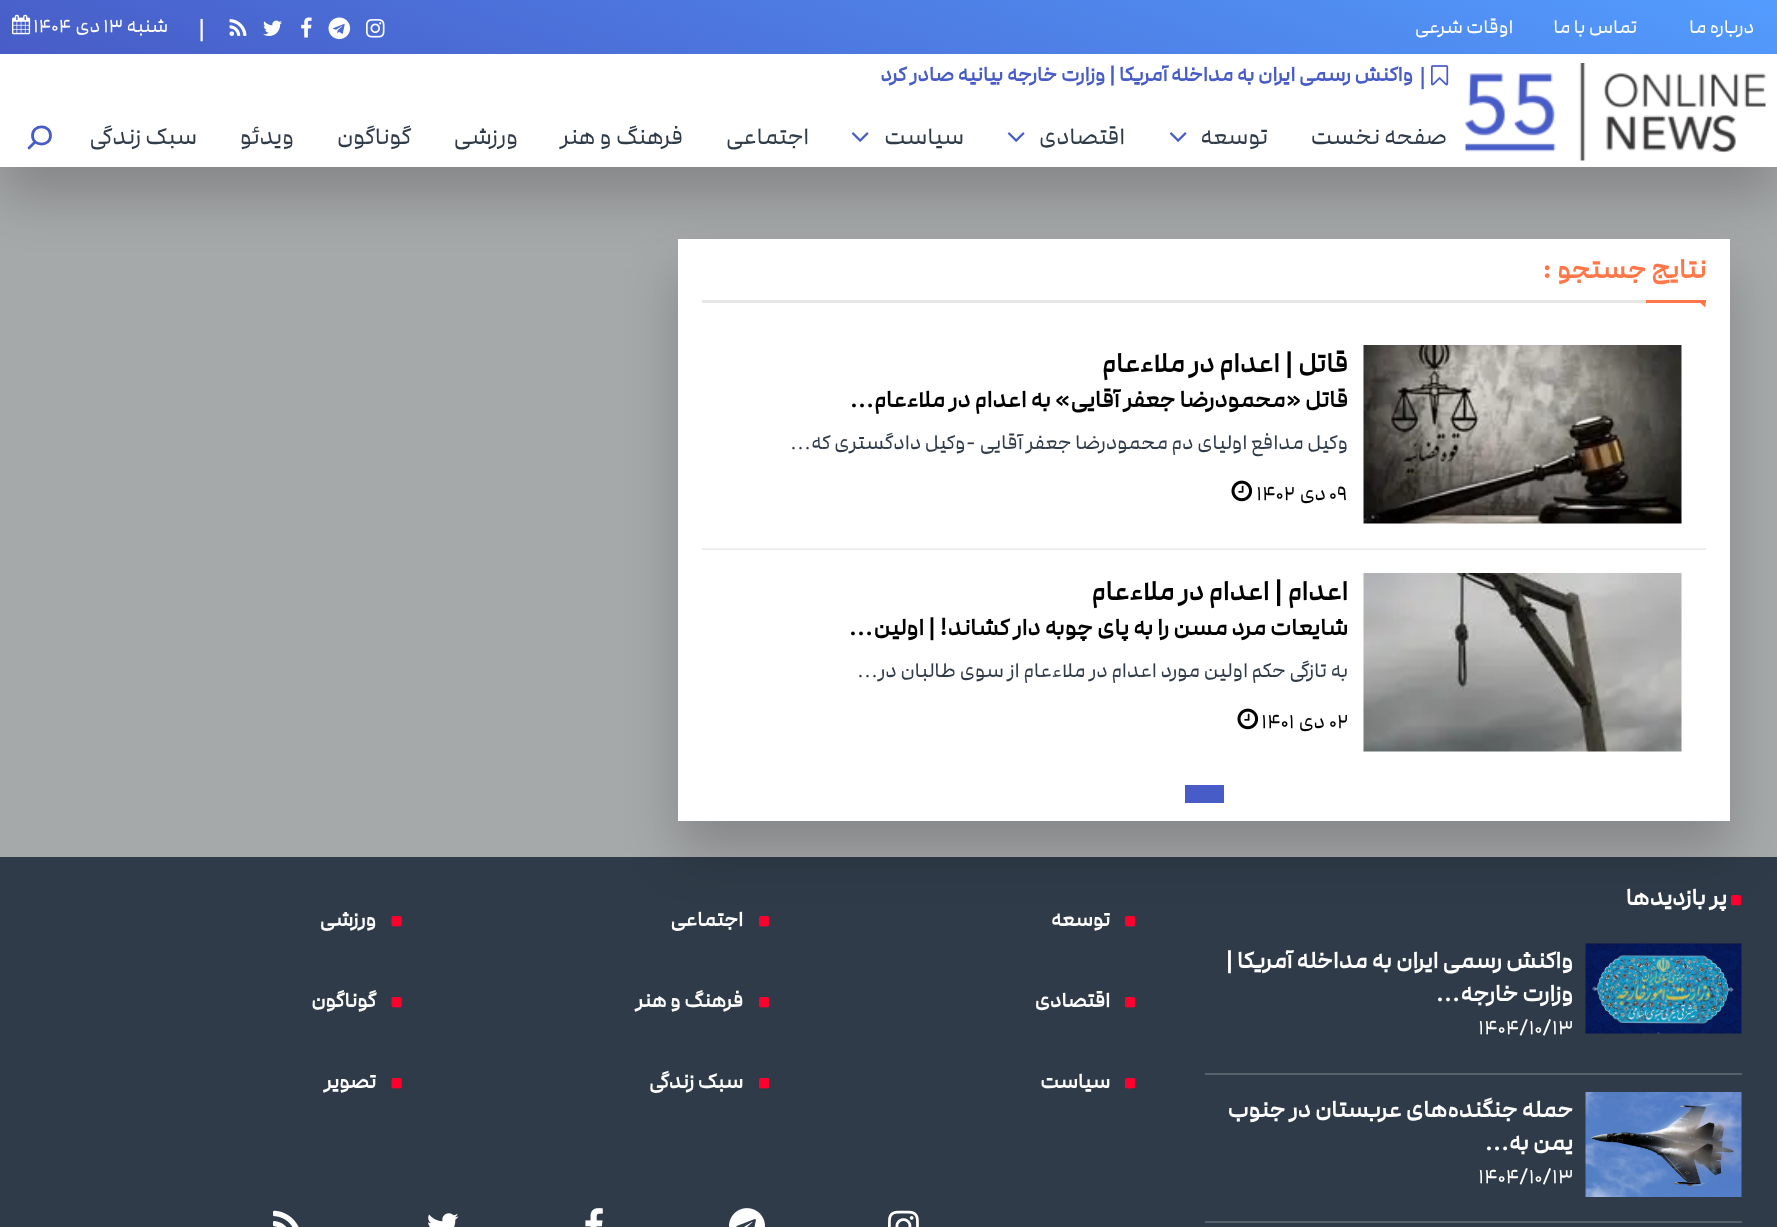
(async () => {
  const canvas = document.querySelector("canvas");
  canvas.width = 1777;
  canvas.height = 1227;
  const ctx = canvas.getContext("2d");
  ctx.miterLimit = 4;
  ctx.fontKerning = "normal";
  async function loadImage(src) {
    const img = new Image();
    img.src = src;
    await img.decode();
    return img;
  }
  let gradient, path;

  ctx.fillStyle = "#a6a9aa";
  ctx.fillRect(0, 0, 1777, 1227);
  ctx.fillStyle = "rgba(0, 0, 0, 0.2)";
  ctx.filter = "blur(26px)";
  ctx.beginPath();
  ctx.rect(0, 30, 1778, 167);
  ctx.fill();
  ctx.filter = "none";
  gradient = ctx.createLinearGradient(776, 336, 1001, -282);
  gradient.addColorStop(0, "#485cc7");
  gradient.addColorStop(1, "#539cfe");
  ctx.fillStyle = gradient;
  ctx.fillRect(0, 0, 1777, 54);
  ctx.drawImage(await loadImage("img/1.png"), 366, 19, 19, 19);
  ctx.drawImage(await loadImage("img/2.png"), 328, 17, 23, 23);
  ctx.drawImage(await loadImage("img/3.png"), 301, 17, 11, 21);
  ctx.drawImage(await loadImage("img/4.png"), 263, 20, 19, 16);
  ctx.drawImage(await loadImage("img/5.png"), 229, 19, 18, 17);
  ctx.drawImage(await loadImage("img/6.png"), 12, 14, 19, 21);
  ctx.fillStyle = "#ffffff";
  ctx.fillRect(0, 54, 1777, 113);
  ctx.drawImage(await loadImage("img/7.png"), 1465, 63, 301, 98);
  ctx.drawImage(await loadImage("img/8.png"), 1431, 65, 18, 21);
  ctx.drawImage(await loadImage("img/9.png"), 1169, 132, 18, 10);
  ctx.drawImage(await loadImage("img/9.png"), 1007, 132, 18, 10);
  ctx.drawImage(await loadImage("img/9.png"), 851, 132, 18, 10);
  path = new Path2D("M34.5 142.5L29 148M50.5 135.5C50.5 147 32.5 147 32.5 135.5C32.5 124 50.5 124 50.5 135.5Z");
  ctx.strokeStyle = "#485cc7";
  ctx.lineWidth = 2.8;
  ctx.lineCap = "round";
  ctx.lineJoin = "round";
  ctx.stroke(path);
  ctx.fillStyle = "#303b49";
  ctx.fillRect(0, 857, 1777, 370);
  ctx.fillStyle = "rgba(0, 0, 0, 0.2)";
  ctx.filter = "blur(26px)";
  ctx.beginPath();
  ctx.rect(678, 269, 1052, 582);
  ctx.fill();
  ctx.filter = "none";
  ctx.fillStyle = "#ffffff";
  ctx.fillRect(678, 239, 1052, 582);
  ctx.fillStyle = "#e6e6e6";
  ctx.fillRect(702, 300, 944, 3);
  ctx.fillStyle = "#ff7648";
  path = new Path2D("M1696.5 300H1705.5V307.5Z");
  ctx.fill(path);
  ctx.fillRect(1646, 300, 60, 3);
  ctx.fillStyle = "#efefef";
  ctx.fillRect(702, 548, 1004, 2);
  ctx.drawImage(await loadImage("img/10.png"), 1363, 345, 319, 179);
  ctx.drawImage(await loadImage("img/11.png"), 1231, 480, 22, 22);
  ctx.drawImage(await loadImage("img/12.png"), 1363, 573, 319, 179);
  ctx.drawImage(await loadImage("img/11.png"), 1237, 708, 22, 22);
  ctx.fillStyle = "#485cc7";
  ctx.fillRect(1185, 785, 39, 18);
  ctx.drawImage(await loadImage("img/13.png"), 1731, 895, 11, 11);
  ctx.fillStyle = "#56616b";
  ctx.fillRect(1205, 1073, 537, 2);
  ctx.drawImage(await loadImage("img/14.png"), 1585, 943, 157, 91);
  ctx.fillRect(1205, 1221, 537, 2);
  ctx.drawImage(await loadImage("img/15.png"), 1585, 1092, 157, 105);
  ctx.drawImage(await loadImage("img/16.png"), 1125, 916, 11, 11);
  ctx.drawImage(await loadImage("img/16.png"), 1125, 997, 11, 11);
  ctx.drawImage(await loadImage("img/16.png"), 1125, 1078, 11, 11);
  ctx.drawImage(await loadImage("img/16.png"), 759, 916, 11, 11);
  ctx.drawImage(await loadImage("img/16.png"), 759, 997, 11, 11);
  ctx.drawImage(await loadImage("img/16.png"), 759, 1078, 11, 11);
  ctx.drawImage(await loadImage("img/17.png"), 391, 916, 11, 11);
  ctx.drawImage(await loadImage("img/17.png"), 391, 997, 11, 11);
  ctx.drawImage(await loadImage("img/17.png"), 391, 1078, 11, 11);
  ctx.drawImage(await loadImage("img/18.png"), 888, 1210, 31, 17);
  ctx.drawImage(await loadImage("img/19.png"), 729, 1208, 36, 19);
  ctx.drawImage(await loadImage("img/20.png"), 585, 1208, 18, 19);
  ctx.drawImage(await loadImage("img/21.png"), 428, 1213, 31, 14);
  ctx.drawImage(await loadImage("img/22.png"), 273, 1210, 26, 17);
  ctx.direction = "rtl";
  ctx.font = "19.5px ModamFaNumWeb";
  ctx.fillStyle = "#ffffff";
  for (const [text, x, y] of [
    ["درباره ما", 1754, 33],
    ["تماس با ما", 1637, 33],
    ["اوقات شرعی", 1513, 33],
  ]) {
    ctx.fillText(text, x, y);
  }
  ctx.direction = "ltr";
  ctx.font = "24px ModamFaNumWeb";
  ctx.fillText("|", 198, 36);
  ctx.direction = "rtl";
  ctx.font = "19.5px ModamFaNumWeb";
  ctx.fillText("شنبه", 168, 32);
  ctx.direction = "ltr";
  ctx.fillText("۱۳", 103, 32);
  ctx.direction = "rtl";
  ctx.fillText("دی", 100, 32);
  ctx.direction = "ltr";
  ctx.fillText("۱۴۰۴", 33, 32);
  ctx.font = "24px ModamFaNumWeb";
  ctx.fillStyle = "#485cc7";
  ctx.fillText("|", 1419, 84);
  ctx.direction = "rtl";
  ctx.font = "bold 21px ModamFaNumWeb";
  ctx.fillText("واکنش رسمی ایران به مداخله آمریکا | وزارت خارجه بیانیه صادر کرد", 1413, 81);
  ctx.font = "24px ModamFaNumWeb";
  ctx.fillStyle = "#303b49";
  for (const [text, x, y] of [
    ["صفحه نخست", 1447, 144],
    ["توسعه", 1268, 144],
    ["اقتصادی", 1125, 144],
    ["سیاست", 964, 144],
    ["اجتماعی", 809, 144],
    ["فرهنگ و هنر", 683, 144],
    ["ورزشی", 518, 144],
    ["گوناگون", 411, 144],
    ["ویدئو", 294, 144],
    ["سبک زندگی", 197, 144],
  ]) {
    ctx.fillText(text, x, y);
  }
  ctx.font = "bold 28px ModamFaNumWeb";
  ctx.fillStyle = "#ff7648";
  ctx.fillText("نتایج جستجو", 1706, 278);
  ctx.direction = "ltr";
  ctx.fillText(":", 1542, 278);
  ctx.direction = "rtl";
  ctx.fillStyle = "#000000";
  ctx.fillText("قاتل | اعدام در ملاءعام", 1348, 372);
  ctx.font = "bold 24px ModamFaNumWeb";
  ctx.fillText("قاتل «محمودرضا جعفر آقایی» به اعدام در ملاءعام", 1348, 407);
  ctx.font = "bold 24px Liberation Serif";
  ctx.fillText("…", 874, 407);
  ctx.font = "21px ModamFaNumWeb";
  ctx.fillStyle = "#303b49";
  ctx.fillText("وکیل مدافع اولیای دم محمودرضا جعفر آقایی -وکیل دادگستری که", 1348, 449);
  ctx.font = "21px Liberation Serif";
  ctx.fillText("…", 811, 449);
  ctx.direction = "ltr";
  ctx.font = "21px ModamFaNumWeb";
  ctx.fillStyle = "#000000";
  ctx.fillText("۰۹", 1329, 500);
  ctx.direction = "rtl";
  ctx.fillText("دی", 1326, 500);
  ctx.direction = "ltr";
  ctx.fillText("۱۴۰۲", 1256, 500);
  ctx.direction = "rtl";
  ctx.font = "bold 28px ModamFaNumWeb";
  ctx.fillText("اعدام | اعدام در ملاءعام", 1348, 600);
  ctx.font = "bold 24px ModamFaNumWeb";
  ctx.fillText("شایعات مرد مسن را به پای چوبه دار کشاند! | اولین", 1348, 635);
  ctx.font = "bold 24px Liberation Serif";
  ctx.fillText("…", 873, 635);
  ctx.font = "21px ModamFaNumWeb";
  ctx.fillStyle = "#303b49";
  ctx.fillText("به تازگی حکم اولین مورد اعدام در ملاءعام از سوی طالبان در", 1348, 677);
  ctx.font = "21px Liberation Serif";
  ctx.fillText("…", 878, 677);
  ctx.direction = "ltr";
  ctx.font = "21px ModamFaNumWeb";
  ctx.fillStyle = "#000000";
  ctx.fillText("۰۲", 1329, 728);
  ctx.direction = "rtl";
  ctx.fillText("دی", 1325, 728);
  ctx.direction = "ltr";
  ctx.fillText("۱۴۰۱", 1261, 728);
  ctx.direction = "rtl";
  ctx.font = "bold 24px ModamFaNumWeb";
  ctx.fillStyle = "#ffffff";
  for (const [text, x, y] of [
    ["پر بازدیدها", 1727, 905],
    ["واکنش رسمی ایران به مداخله آمریکا |", 1573, 968],
    ["وزارت خارجه", 1573, 1001],
  ]) {
    ctx.fillText(text, x, y);
  }
  ctx.font = "bold 24px Liberation Serif";
  ctx.fillText("…", 1460, 1001);
  ctx.direction = "ltr";
  ctx.font = "21px ModamFaNumWeb";
  ctx.fillText("۱۴۰۴/۱۰/۱۳", 1478, 1034);
  ctx.direction = "rtl";
  ctx.font = "bold 24px ModamFaNumWeb";
  ctx.fillText("حمله جنگنده‌های عربستان در جنوب", 1573, 1117);
  ctx.fillText("یمن به", 1573, 1150);
  ctx.font = "bold 24px Liberation Serif";
  ctx.fillText("…", 1509, 1150);
  ctx.direction = "ltr";
  ctx.font = "21px ModamFaNumWeb";
  ctx.fillText("۱۴۰۴/۱۰/۱۳", 1478, 1183);
  ctx.direction = "rtl";
  ctx.font = "bold 21px ModamFaNumWeb";
  for (const [text, x, y] of [
    ["توسعه", 1110, 926],
    ["اقتصادی", 1110, 1007],
    ["سیاست", 1110, 1088],
    ["اجتماعی", 743, 926],
    ["فرهنگ و هنر", 743, 1007],
    ["سبک زندگی", 743, 1088],
    ["ورزشی", 376, 926],
    ["گوناگون", 376, 1007],
    ["تصویر", 376, 1088],
  ]) {
    ctx.fillText(text, x, y);
  }
})();
